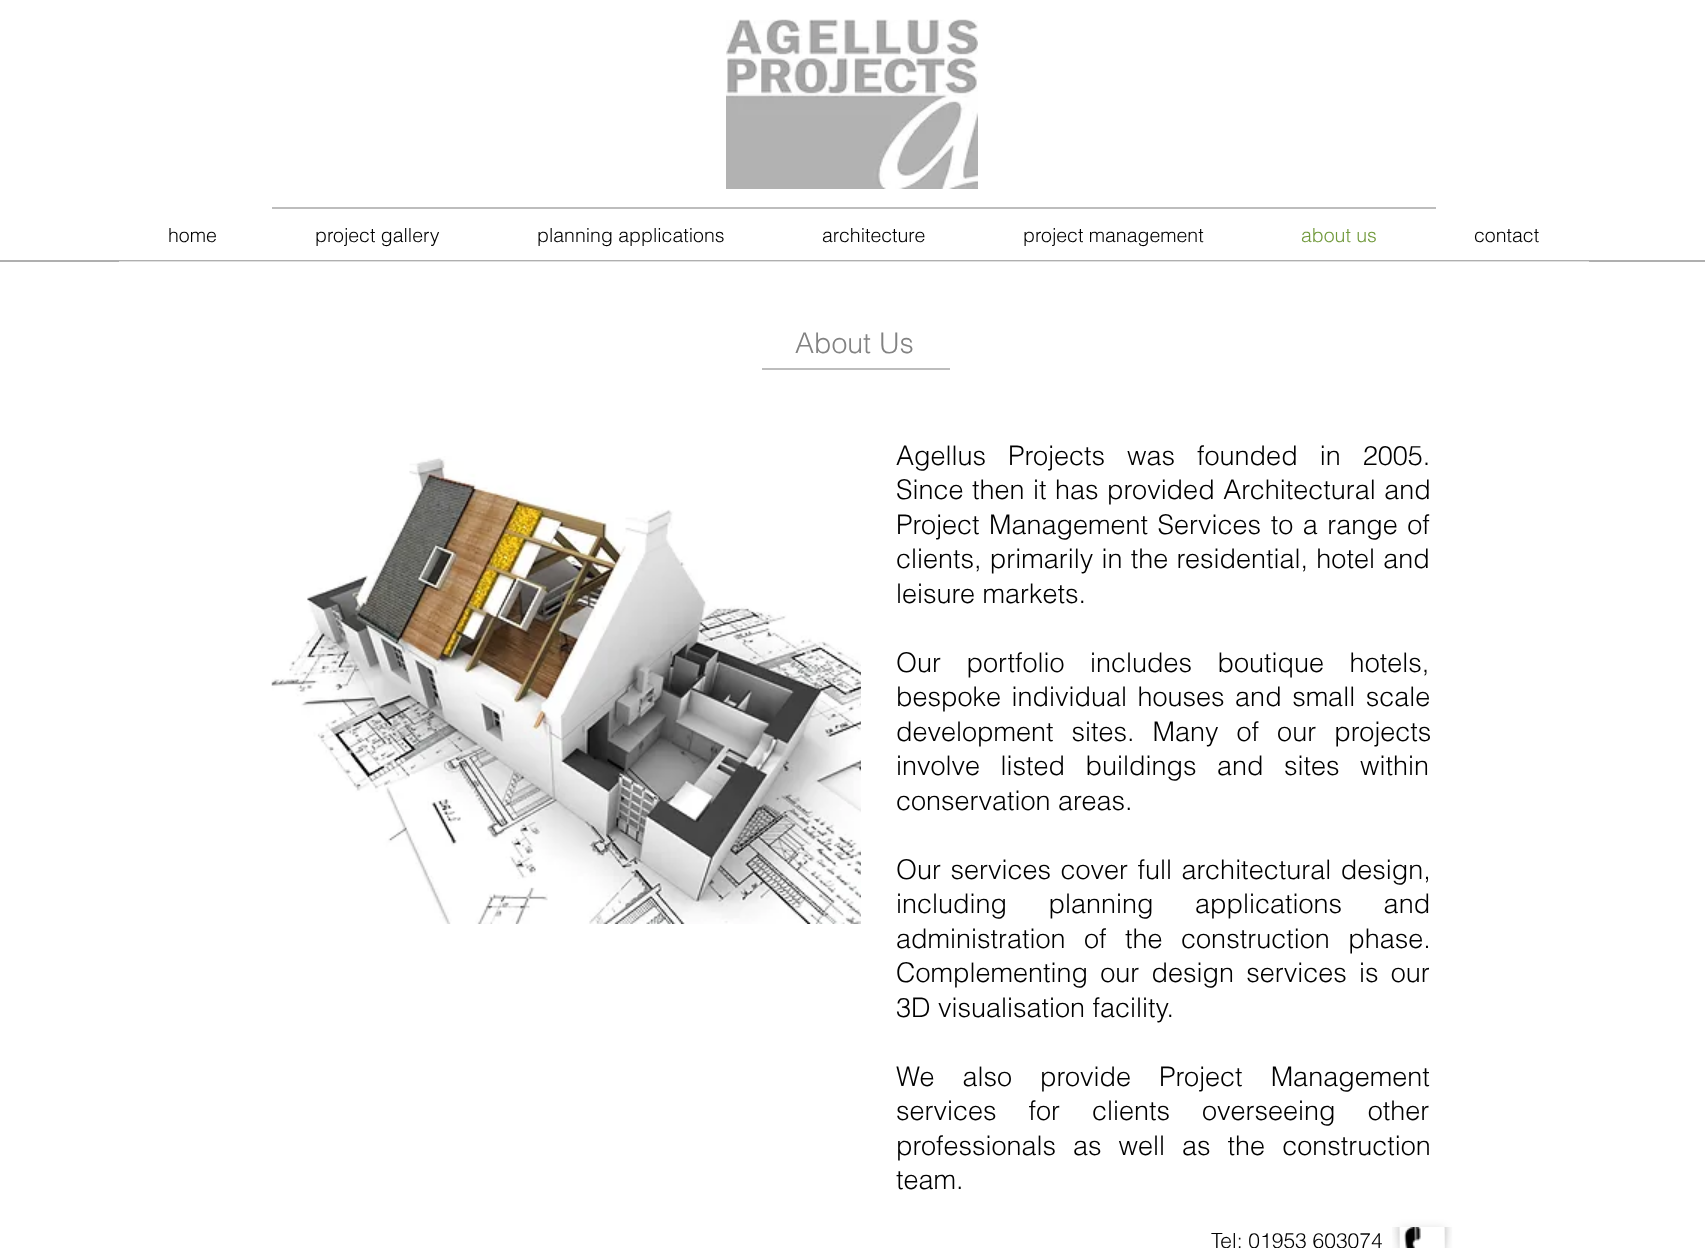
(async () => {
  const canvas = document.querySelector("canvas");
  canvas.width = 1705;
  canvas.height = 1248;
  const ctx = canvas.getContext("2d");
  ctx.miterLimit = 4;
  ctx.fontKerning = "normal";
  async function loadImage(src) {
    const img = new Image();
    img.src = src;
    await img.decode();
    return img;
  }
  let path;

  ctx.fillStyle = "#ffffff";
  ctx.fillRect(0, 0, 1705, 1248);
  ctx.drawImage(await loadImage("img/1.png"), 726, 19, 252, 170);
  for (const [x, y, w, h, color] of [
    [272, 207, 1164, 2, "#bdbdbd"],
    [0, 260, 1705, 2, "#afafaf"],
    [119, 261, 1470, 1, "#e0e0e0"],
    [762, 368, 188, 2, "#bdbdbd"],
  ]) {
    ctx.fillStyle = color;
    ctx.fillRect(x, y, w, h);
  }
  ctx.drawImage(await loadImage("img/2.png"), 271, 456, 590, 468);
  ctx.save();
  path = new Path2D("M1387 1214H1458V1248H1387ZM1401.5 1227H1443.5C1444.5 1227 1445 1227.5 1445 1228.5V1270.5C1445 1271.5 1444.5 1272 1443.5 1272H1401.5C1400.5 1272 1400 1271.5 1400 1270.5V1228.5C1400 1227.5 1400.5 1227 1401.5 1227Z");
  ctx.clip(path, "evenodd");
  ctx.fillStyle = "rgba(0, 0, 0, 0.1)";
  ctx.filter = "blur(4px)";
  ctx.beginPath();
  ctx.roundRect(1400, 1227, 45, 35, 1.5);
  ctx.fill();
  ctx.filter = "none";
  ctx.restore();
  ctx.drawImage(await loadImage("img/3.png"), 1404, 1227, 17, 21);
  ctx.drawImage(await loadImage("img/4.png"), 1392, 1227, 8, 21);
  ctx.drawImage(await loadImage("img/5.png"), 1444, 1227, 8, 21);
  ctx.font = "300 19.5px helvetica";
  ctx.fillStyle = "#000000";
  for (const [text, x, y] of [
    ["home", 168, 242],
    ["project gallery", 315, 242],
    ["planning applications", 537, 242],
    ["architecture", 822, 242],
    ["project management", 1023, 242],
  ]) {
    ctx.fillText(text, x, y);
  }
  ctx.fillStyle = "#719a3c";
  ctx.fillText("about us", 1301, 242);
  ctx.fillStyle = "#000000";
  ctx.fillText("contact", 1474, 242);
  ctx.font = "300 28.5px helvetica";
  ctx.fillStyle = "#828282";
  ctx.fillText("About Us", 795, 353);
  ctx.wordSpacing = "14.5px";
  ctx.font = "300 27px helvetica";
  ctx.fillStyle = "#000000";
  ctx.fillText("Agellus Projects was founded in 2005.", 896, 465);
  ctx.wordSpacing = "1px";
  ctx.fillText("Since then it has provided Architectural and", 896, 499);
  ctx.wordSpacing = "2px";
  ctx.fillText("Project Management Services to a range of", 896, 534);
  ctx.wordSpacing = "0.75px";
  ctx.fillText("clients, primarily in the residential, hotel and", 896, 568);
  ctx.wordSpacing = "0px";
  ctx.fillText("leisure markets.", 896, 603);
  ctx.wordSpacing = "18px";
  ctx.fillText("Our portfolio includes boutique hotels,", 896, 672);
  ctx.wordSpacing = "3px";
  ctx.fillText("bespoke individual houses and small scale", 896, 706);
  ctx.wordSpacing = "10.5px";
  ctx.fillText("development sites. Many of our projects", 896, 741);
  ctx.wordSpacing = "13px";
  ctx.fillText("involve listed buildings and sites within", 896, 775);
  ctx.wordSpacing = "0px";
  ctx.fillText("conservation areas.", 896, 810);
  ctx.wordSpacing = "2px";
  ctx.fillText("Our services cover full architectural design,", 896, 879);
  ctx.wordSpacing = "34px";
  ctx.fillText("including planning applications and", 896, 913);
  ctx.wordSpacing = "11px";
  ctx.fillText("administration of the construction phase.", 896, 948);
  ctx.wordSpacing = "4.75px";
  ctx.fillText("Complementing our design services is our", 896, 982);
  ctx.wordSpacing = "0px";
  ctx.fillText("3D visualisation facility.", 896, 1017);
  ctx.wordSpacing = "20.5px";
  ctx.fillText("We also provide Project Management", 896, 1086);
  ctx.wordSpacing = "24.5px";
  ctx.fillText("services for clients overseeing other", 896, 1120);
  ctx.wordSpacing = "9.5px";
  ctx.fillText("professionals as well as the construction", 896, 1155);
  ctx.wordSpacing = "0px";
  ctx.fillText("team.", 896, 1189);
  ctx.font = "300 21px helvetica";
  ctx.fillText("Tel: 01953 603074", 1211, 1248);
})();
